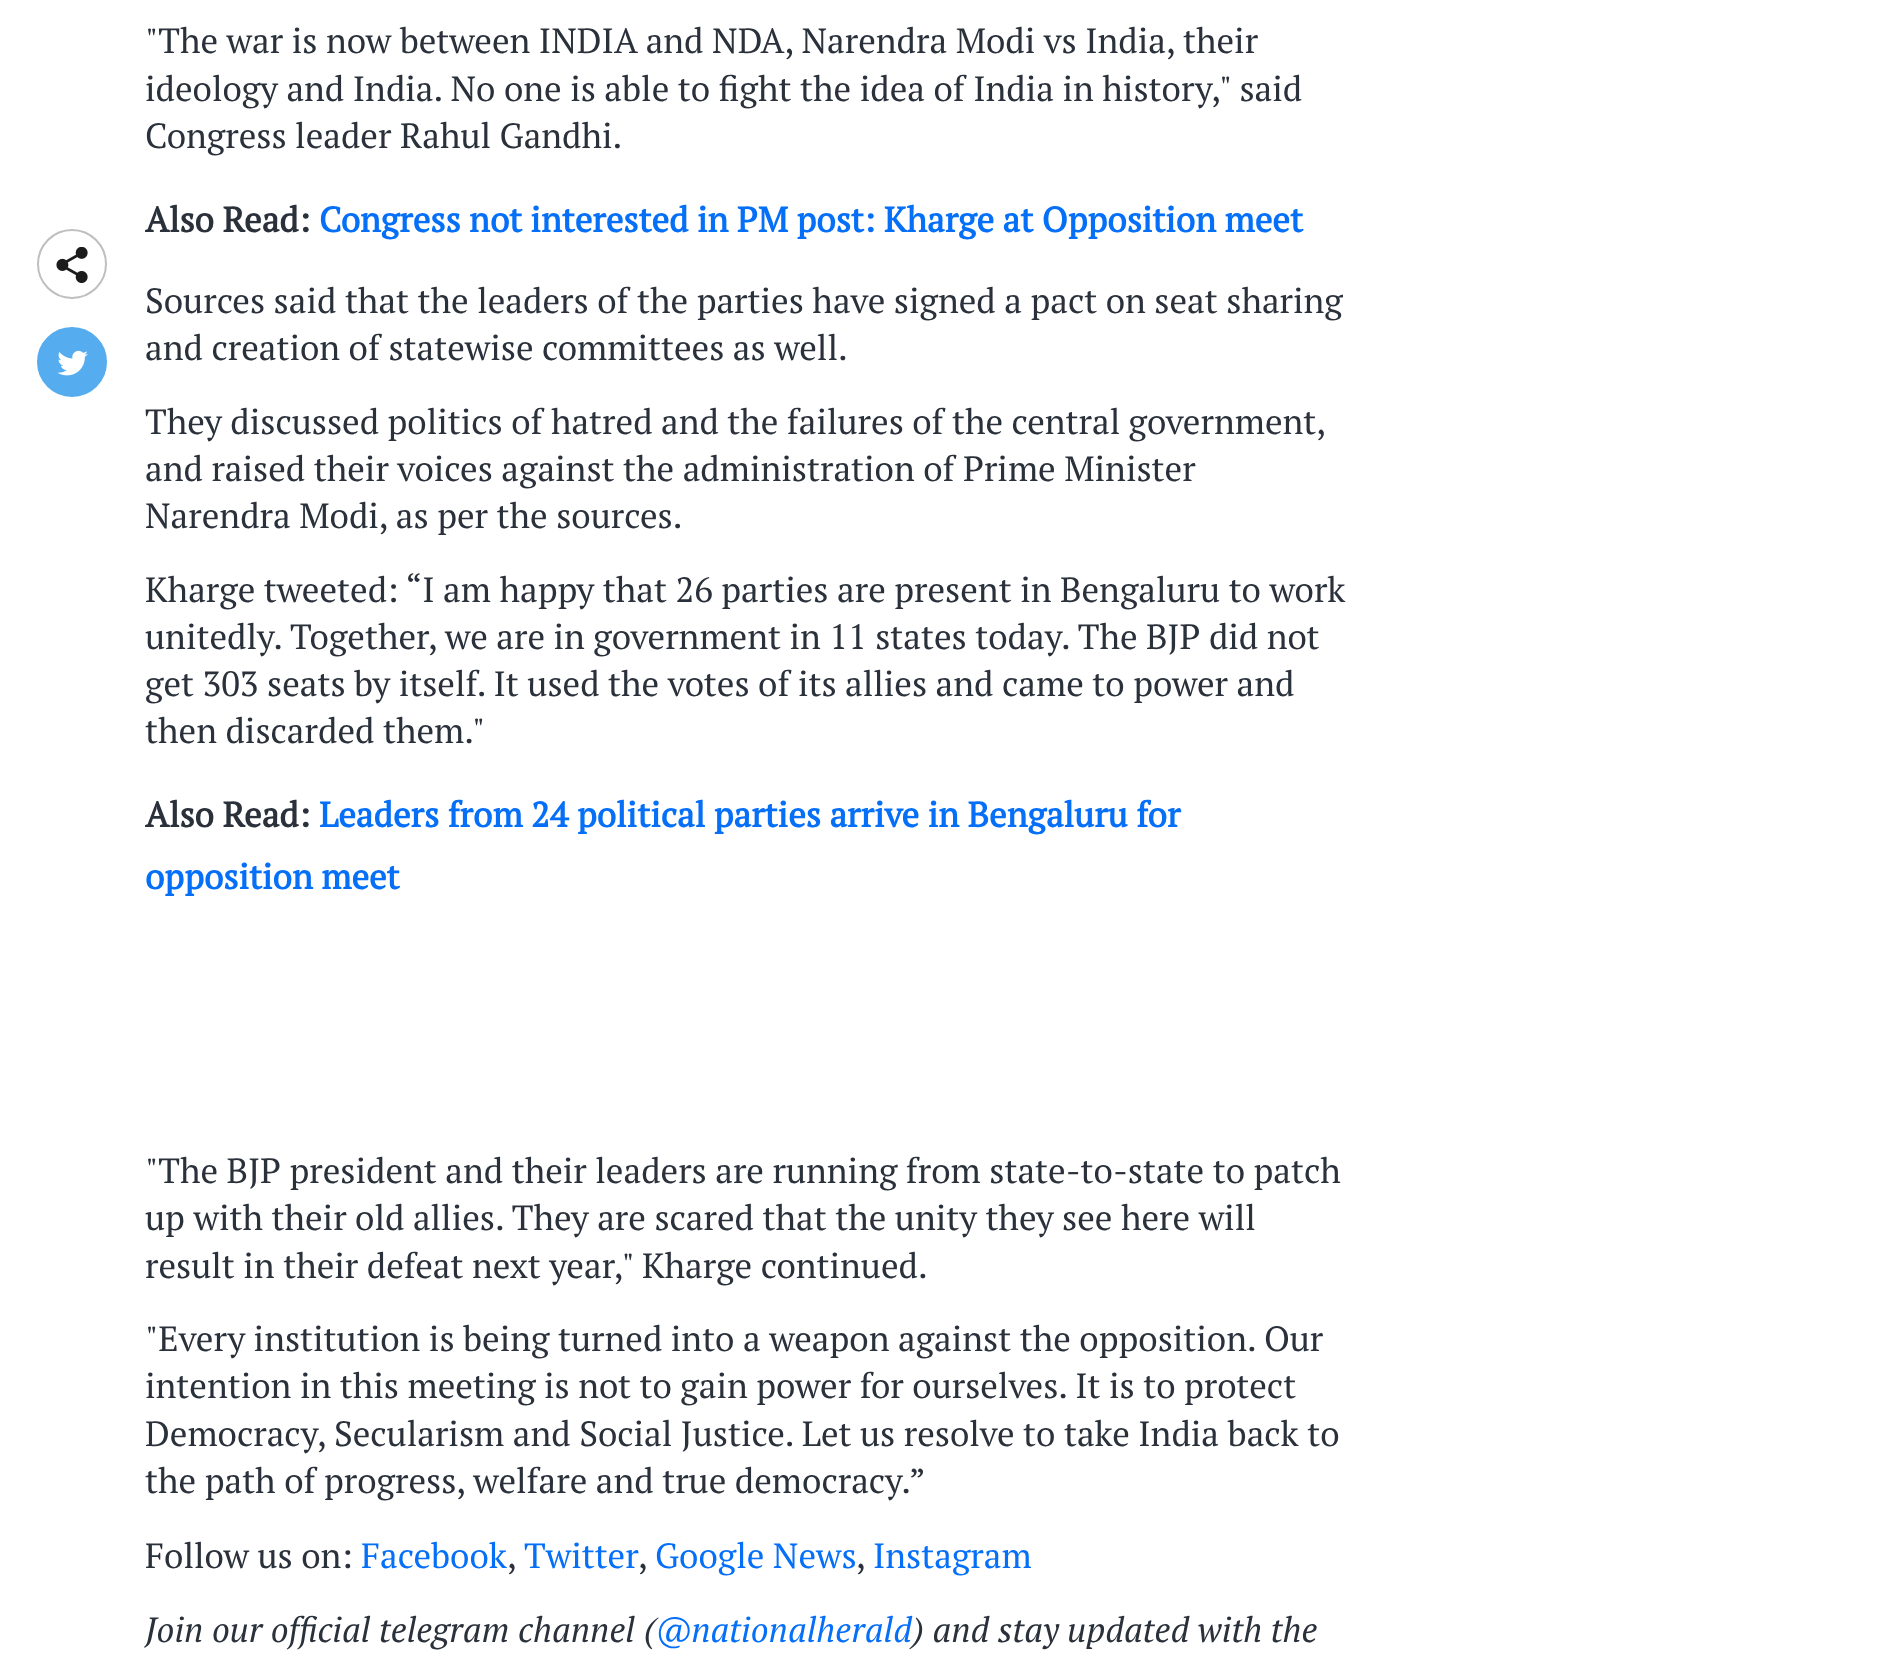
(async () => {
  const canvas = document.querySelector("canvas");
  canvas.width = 1892;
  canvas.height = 1678;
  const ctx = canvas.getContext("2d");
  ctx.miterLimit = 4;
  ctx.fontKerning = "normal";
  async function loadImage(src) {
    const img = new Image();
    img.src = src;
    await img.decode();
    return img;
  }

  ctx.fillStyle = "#ffffff";
  ctx.fillRect(0, 0, 1892, 1678);
  ctx.beginPath();
  ctx.arc(72, 264, 34, 0, Math.PI * 2);
  ctx.strokeStyle = "#bfbfbf";
  ctx.lineWidth = 2;
  ctx.stroke();
  ctx.drawImage(await loadImage("img/1.png"), 56, 247, 32, 37);
  ctx.fillStyle = "#55acee";
  ctx.beginPath();
  ctx.arc(72, 362, 34, 0, Math.PI * 2);
  ctx.fill();
  ctx.strokeStyle = "#55acee";
  ctx.stroke();
  ctx.drawImage(await loadImage("img/2.png"), 57, 350, 31, 26);
  ctx.font = "35px PT Serif";
  ctx.fillStyle = "#2a313b";
  for (const [text, x, y] of [
    ["\"The war is now between INDIA and NDA, Narendra Modi vs India, their", 145, 53],
    ["ideology and India. No one is able to fight the idea of India in history,\" said", 145, 101],
    ["Congress leader Rahul Gandhi.", 145, 148],
  ]) {
    ctx.fillText(text, x, y);
  }
  ctx.font = "bold 35px PT Serif";
  ctx.fillText("Also Read:", 145, 232);
  ctx.fillStyle = "#056ff7";
  ctx.fillText("Congress not interested in PM post: Kharge at Opposition meet", 319, 232);
  ctx.font = "35px PT Serif";
  ctx.fillStyle = "#2a313b";
  ctx.fillText("Sources said that the leaders of the parties have signed a pact on seat sharing", 145, 313);
  ctx.fillText("and creation of statewise committees as well.", 145, 360);
  ctx.wordSpacing = "-0.1px";
  ctx.fillText("They discussed politics of hatred and the failures of the central government,", 145, 434);
  ctx.wordSpacing = "0px";
  for (const [text, x, y] of [
    ["and raised their voices against the administration of Prime Minister", 145, 481],
    ["Narendra Modi, as per the sources.", 145, 528],
    ["Kharge tweeted: “I am happy that 26 parties are present in Bengaluru to work", 145, 602],
    ["unitedly. Together, we are in government in 11 states today. The BJP did not", 145, 649],
    ["get 303 seats by itself. It used the votes of its allies and came to power and", 145, 696],
    ["then discarded them.\"", 145, 743],
  ]) {
    ctx.fillText(text, x, y);
  }
  ctx.font = "bold 35px PT Serif";
  ctx.fillText("Also Read:", 145, 827);
  ctx.fillStyle = "#056ff7";
  ctx.fillText("Leaders from 24 political parties arrive in Bengaluru for", 319, 827);
  ctx.fillText("opposition meet", 145, 889);
  ctx.font = "35px PT Serif";
  ctx.fillStyle = "#2a313b";
  for (const [text, x, y] of [
    ["\"The BJP president and their leaders are running from state-to-state to patch", 145, 1183],
    ["up with their old allies. They are scared that the unity they see here will", 145, 1230],
    ["result in their defeat next year,\" Kharge continued.", 145, 1278],
    ["\"Every institution is being turned into a weapon against the opposition. Our", 145, 1351],
    ["intention in this meeting is not to gain power for ourselves. It is to protect", 145, 1398],
    ["Democracy, Secularism and Social Justice. Let us resolve to take India back to", 145, 1446],
    ["the path of progress, welfare and true democracy.”", 145, 1493],
    ["Follow us on:", 145, 1568],
  ]) {
    ctx.fillText(text, x, y);
  }
  ctx.fillStyle = "#056ff7";
  ctx.fillText("Facebook", 361, 1568);
  ctx.fillStyle = "#2a313b";
  ctx.fillText(",", 507, 1568);
  ctx.fillStyle = "#056ff7";
  ctx.fillText("Twitter", 524, 1568);
  ctx.fillStyle = "#2a313b";
  ctx.fillText(",", 638, 1568);
  ctx.fillStyle = "#056ff7";
  ctx.fillText("Google News", 655, 1568);
  ctx.fillStyle = "#2a313b";
  ctx.fillText(",", 856, 1568);
  ctx.fillStyle = "#056ff7";
  ctx.fillText("Instagram", 873, 1568);
  ctx.font = "italic 35px PT Serif";
  ctx.fillStyle = "#2a313b";
  ctx.fillText("Join our official telegram channel (", 145, 1642);
  ctx.fillStyle = "#056ff7";
  ctx.fillText("@nationalherald", 656, 1642);
  ctx.fillStyle = "#2a313b";
  ctx.fillText(") and stay updated with the", 912, 1642);
})();
